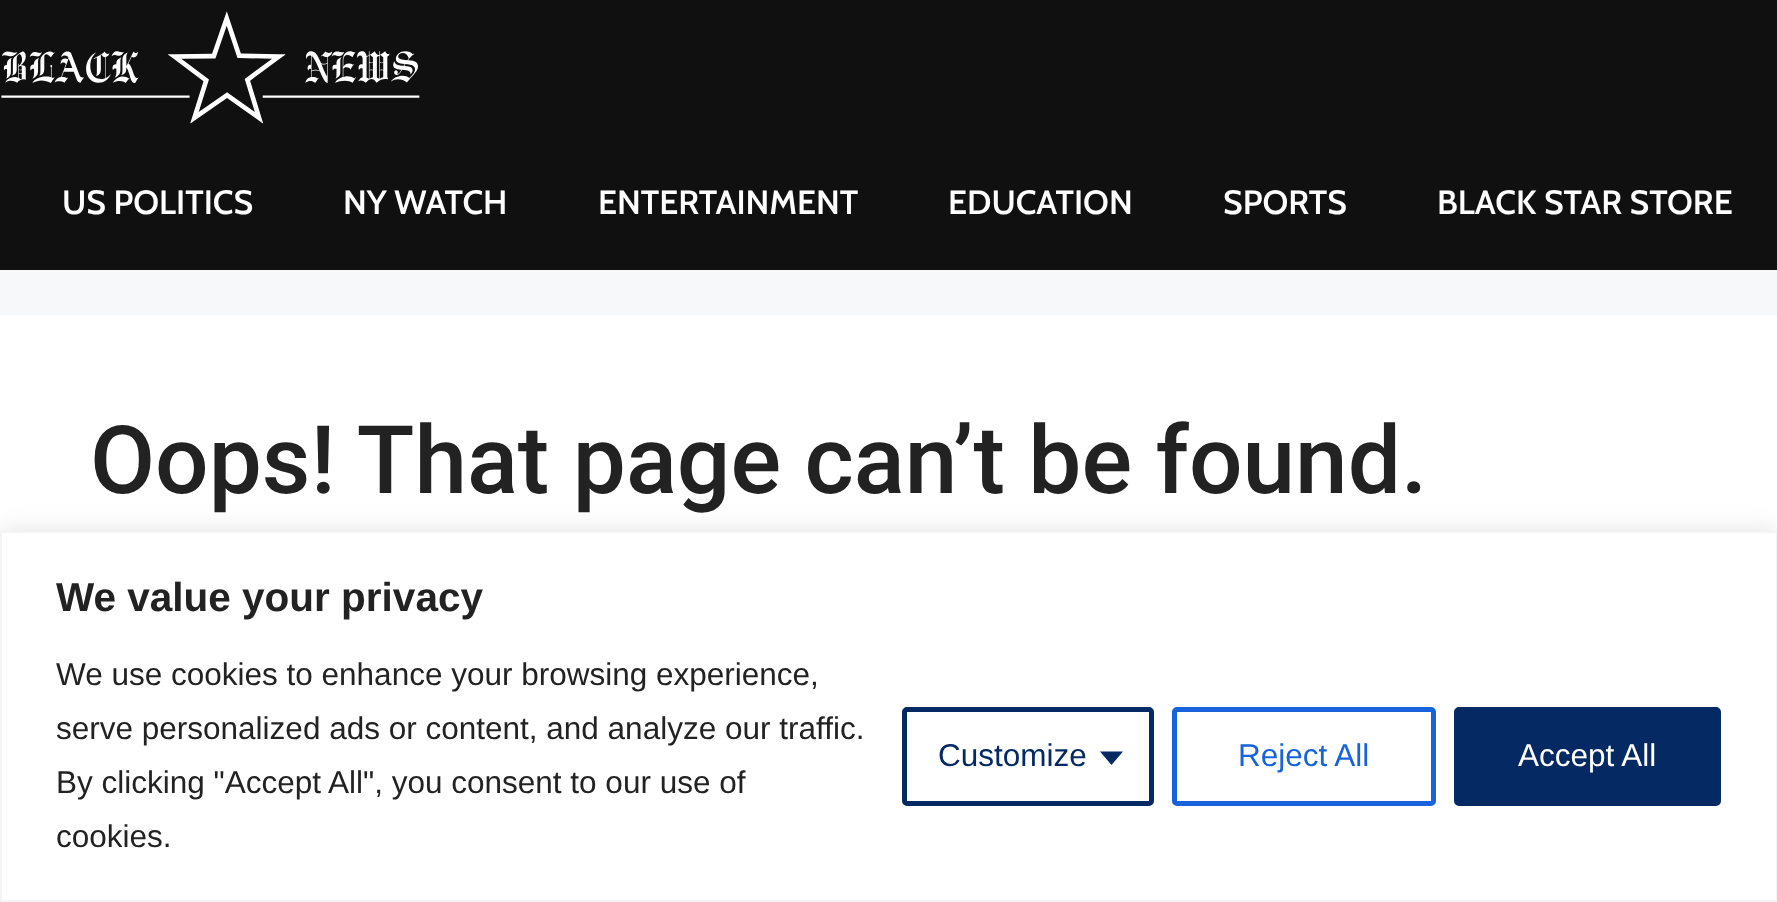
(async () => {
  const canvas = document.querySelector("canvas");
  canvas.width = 1777;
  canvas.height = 902;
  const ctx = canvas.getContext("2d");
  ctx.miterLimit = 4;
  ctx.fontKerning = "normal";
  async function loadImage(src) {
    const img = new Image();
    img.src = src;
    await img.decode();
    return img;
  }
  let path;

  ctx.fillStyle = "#f7f8f9";
  ctx.fillRect(0, 0, 1777, 902);
  ctx.fillStyle = "#101010";
  ctx.fillRect(0, 0, 1777, 270);
  ctx.drawImage(await loadImage("img/1.png"), 1, 11, 419, 113);
  ctx.fillStyle = "#ffffff";
  ctx.fillRect(0, 315, 1777, 216);
  ctx.fillStyle = "rgba(172, 171, 171, 0.3)";
  ctx.filter = "blur(11px)";
  ctx.beginPath();
  ctx.rect(0, 529, 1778, 371);
  ctx.fill();
  ctx.filter = "none";
  ctx.fillStyle = "#ffffff";
  ctx.beginPath();
  ctx.rect(1, 532, 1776, 369);
  ctx.fill();
  ctx.strokeStyle = "#f4f4f4";
  ctx.lineWidth = 2;
  ctx.stroke();
  ctx.beginPath();
  ctx.roundRect(904.5, 709.5, 247, 94, 2.5);
  ctx.strokeStyle = "#052962";
  ctx.lineWidth = 5;
  ctx.stroke();
  ctx.fillStyle = "#052962";
  path = new Path2D("M1100 751.5H1123L1111.5 765Z");
  ctx.fill(path);
  ctx.beginPath();
  ctx.roundRect(1174.5, 709.5, 259, 94, 2.5);
  ctx.strokeStyle = "#1863dc";
  ctx.stroke();
  ctx.beginPath();
  ctx.roundRect(1456.5, 709.5, 262, 94, 2.5);
  ctx.fill();
  ctx.strokeStyle = "#052962";
  ctx.stroke();
  ctx.font = "600 33.75px Cabin";
  ctx.fillStyle = "#ffffff";
  for (const [text, x, y] of [
    ["US POLITICS", 62, 214],
    ["NY WATCH", 343, 214],
    ["ENTERTAINMENT", 598, 214],
    ["EDUCATION", 948, 214],
    ["SPORTS", 1223, 214],
    ["BLACK STAR STORE", 1437, 214],
  ]) {
    ctx.fillText(text, x, y);
  }
  ctx.font = "500 94.5px Roboto";
  ctx.fillStyle = "#222222";
  ctx.fillText("Oops! That page can’t be found.", 90, 493);
  ctx.font = "bold 40.5px Liberation Sans";
  ctx.fillText("We value your privacy", 56, 611);
  ctx.font = "31.5px Liberation Sans";
  for (const [text, x, y] of [
    ["We use cookies to enhance your browsing experience,", 56, 685],
    ["serve personalized ads or content, and analyze our traffic.", 56, 739],
    ["By clicking \"Accept All\", you consent to our use of", 56, 793],
    ["cookies.", 56, 847],
  ]) {
    ctx.fillText(text, x, y);
  }
  ctx.fillStyle = "#052962";
  ctx.fillText("Customize", 938, 766);
  ctx.fillStyle = "#1863dc";
  ctx.fillText("Reject All", 1238, 766);
  ctx.fillStyle = "#ffffff";
  ctx.fillText("Accept All", 1518, 766);
})();
